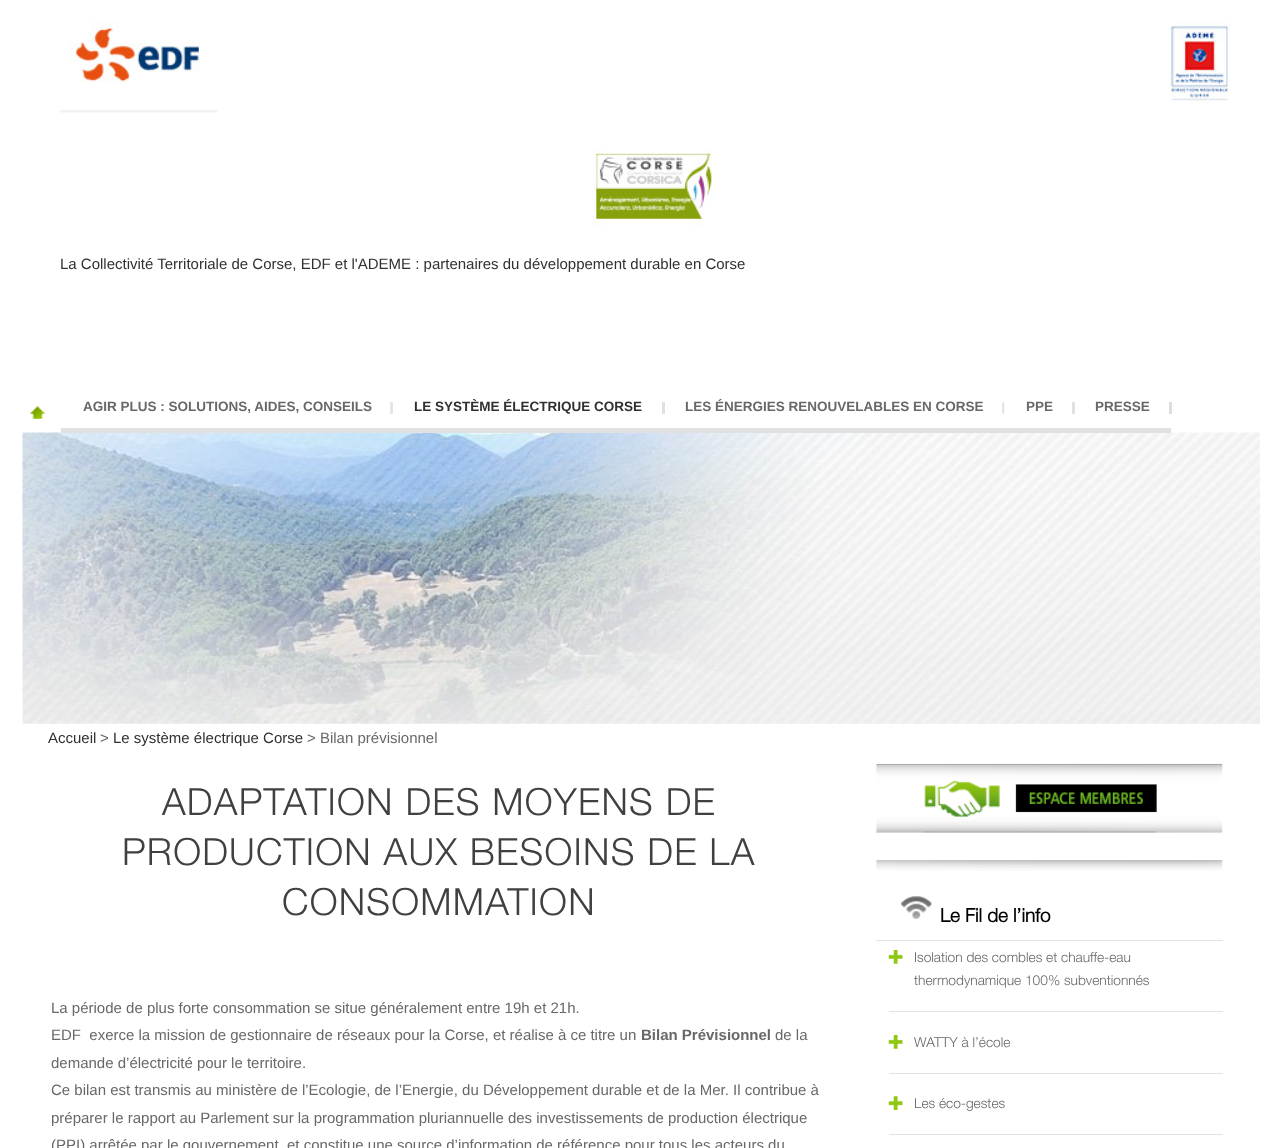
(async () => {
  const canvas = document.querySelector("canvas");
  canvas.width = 1282;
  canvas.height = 1148;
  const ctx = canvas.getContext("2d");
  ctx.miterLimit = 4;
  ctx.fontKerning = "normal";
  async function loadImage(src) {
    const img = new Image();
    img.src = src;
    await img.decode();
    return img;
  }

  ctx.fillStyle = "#ffffff";
  ctx.fillRect(0, 0, 1282, 1148);
  ctx.drawImage(await loadImage("img/1.png"), 60, 22, 158, 91);
  ctx.drawImage(await loadImage("img/2.png"), 1170, 22, 60, 81);
  ctx.drawImage(await loadImage("img/3.png"), 592, 148, 121, 79);
  ctx.drawImage(await loadImage("img/4.png"), 29, 406, 16, 13);
  ctx.fillStyle = "#e4e4e4";
  ctx.fillRect(390, 402, 3, 12);
  ctx.drawImage(await loadImage("img/6.png"), 22, 432, 1238, 292);
  ctx.fillStyle = "#e0e1e2";
  ctx.fillRect(61, 428, 1110, 5);
  ctx.fillStyle = "#e1e1e1";
  ctx.fillRect(662, 402, 3, 12);
  ctx.drawImage(await loadImage("img/5.png"), 1002, 402, 2, 12);
  ctx.fillRect(1072, 402, 3, 12);
  ctx.fillStyle = "#dedede";
  ctx.fillRect(1169, 402, 3, 12);
  ctx.drawImage(await loadImage("img/7.png"), 876, 763, 347, 70);
  ctx.drawImage(await loadImage("img/8.png"), 876, 860, 347, 11);
  ctx.fillStyle = "#e2e2e2";
  ctx.fillRect(876, 940, 347, 1);
  ctx.drawImage(await loadImage("img/9.png"), 901, 896, 31, 23);
  ctx.drawImage(await loadImage("img/10.png"), 888, 950, 15, 14);
  ctx.fillRect(889, 1011, 334, 1);
  ctx.drawImage(await loadImage("img/10.png"), 888, 1035, 15, 14);
  ctx.fillRect(889, 1073, 334, 1);
  ctx.drawImage(await loadImage("img/11.png"), 888, 1096, 15, 14);
  ctx.fillRect(889, 1134, 334, 1);
  ctx.font = "15px Liberation Sans";
  ctx.fillStyle = "#303030";
  ctx.fillText("La Collectivité Territoriale de Corse, EDF et l'ADEME : partenaires du développement durable en Corse", 60, 269);
  ctx.font = "bold 13.5px Liberation Sans";
  ctx.fillStyle = "#686868";
  ctx.fillText("AGIR PLUS : SOLUTIONS, AIDES, CONSEILS", 83, 411);
  ctx.fillStyle = "#303030";
  ctx.fillText("LE SYSTÈME ÉLECTRIQUE CORSE", 414, 411);
  ctx.fillStyle = "#686868";
  for (const [text, x, y] of [
    ["LES ÉNERGIES RENOUVELABLES EN CORSE", 685, 411],
    ["PPE", 1026, 411],
    ["PRESSE", 1095, 411],
  ]) {
    ctx.fillText(text, x, y);
  }
  ctx.font = "15px Liberation Sans";
  ctx.fillStyle = "#303030";
  ctx.fillText("Accueil", 48, 743);
  ctx.fillStyle = "#686868";
  ctx.fillText(">", 100, 743);
  ctx.fillStyle = "#303030";
  ctx.fillText("Le système électrique Corse", 113, 743);
  ctx.fillStyle = "#686868";
  ctx.fillText("> Bilan prévisionnel", 307, 743);
  ctx.letterSpacing = "1.25px";
  ctx.font = "300 37.5px Helvetica Neue";
  ctx.fillStyle = "#414040";
  for (const [text, x, y] of [
    ["ADAPTATION DES MOYENS DE", 162, 815],
    ["PRODUCTION AUX BESOINS DE LA", 122, 865],
    ["CONSOMMATION", 282, 915],
  ]) {
    ctx.fillText(text, x, y);
  }
  ctx.letterSpacing = "0px";
  ctx.font = "15px Liberation Sans";
  ctx.fillStyle = "#686868";
  ctx.fillText("La période de plus forte consommation se situe généralement entre 19h et 21h.", 51, 1013);
  ctx.fillText("EDF  exerce la mission de gestionnaire de réseaux pour la Corse, et réalise à ce titre un", 51, 1040);
  ctx.font = "bold 15px Liberation Sans";
  ctx.fillText("Bilan Prévisionnel", 641, 1040);
  ctx.font = "15px Liberation Sans";
  for (const [text, x, y] of [
    ["de la", 775, 1040],
    ["demande d’électricité pour le territoire.", 51, 1068],
    ["Ce bilan est transmis au ministère de l’Ecologie, de l’Energie, du Développement durable et de la Mer. Il contribue à", 51, 1095],
    ["préparer le rapport au Parlement sur la programmation pluriannuelle des investissements de production électrique", 51, 1123],
    ["(PPI) arrêtée par le gouvernement, et constitue une source d’information de référence pour tous les acteurs du", 51, 1150],
  ]) {
    ctx.fillText(text, x, y);
  }
  ctx.font = "bold 18.75px Helvetica Neue";
  ctx.fillStyle = "#000000";
  ctx.fillText("Le Fil de l’info", 940, 922);
  ctx.font = "300 13.75px Helvetica Neue";
  ctx.fillStyle = "#686868";
  for (const [text, x, y] of [
    ["Isolation des combles et chauffe-eau", 914, 962],
    ["thermodynamique 100% subventionnés", 914, 985],
    ["WATTY à l’école", 914, 1047],
    ["Les éco-gestes", 914, 1108],
  ]) {
    ctx.fillText(text, x, y);
  }
})();
